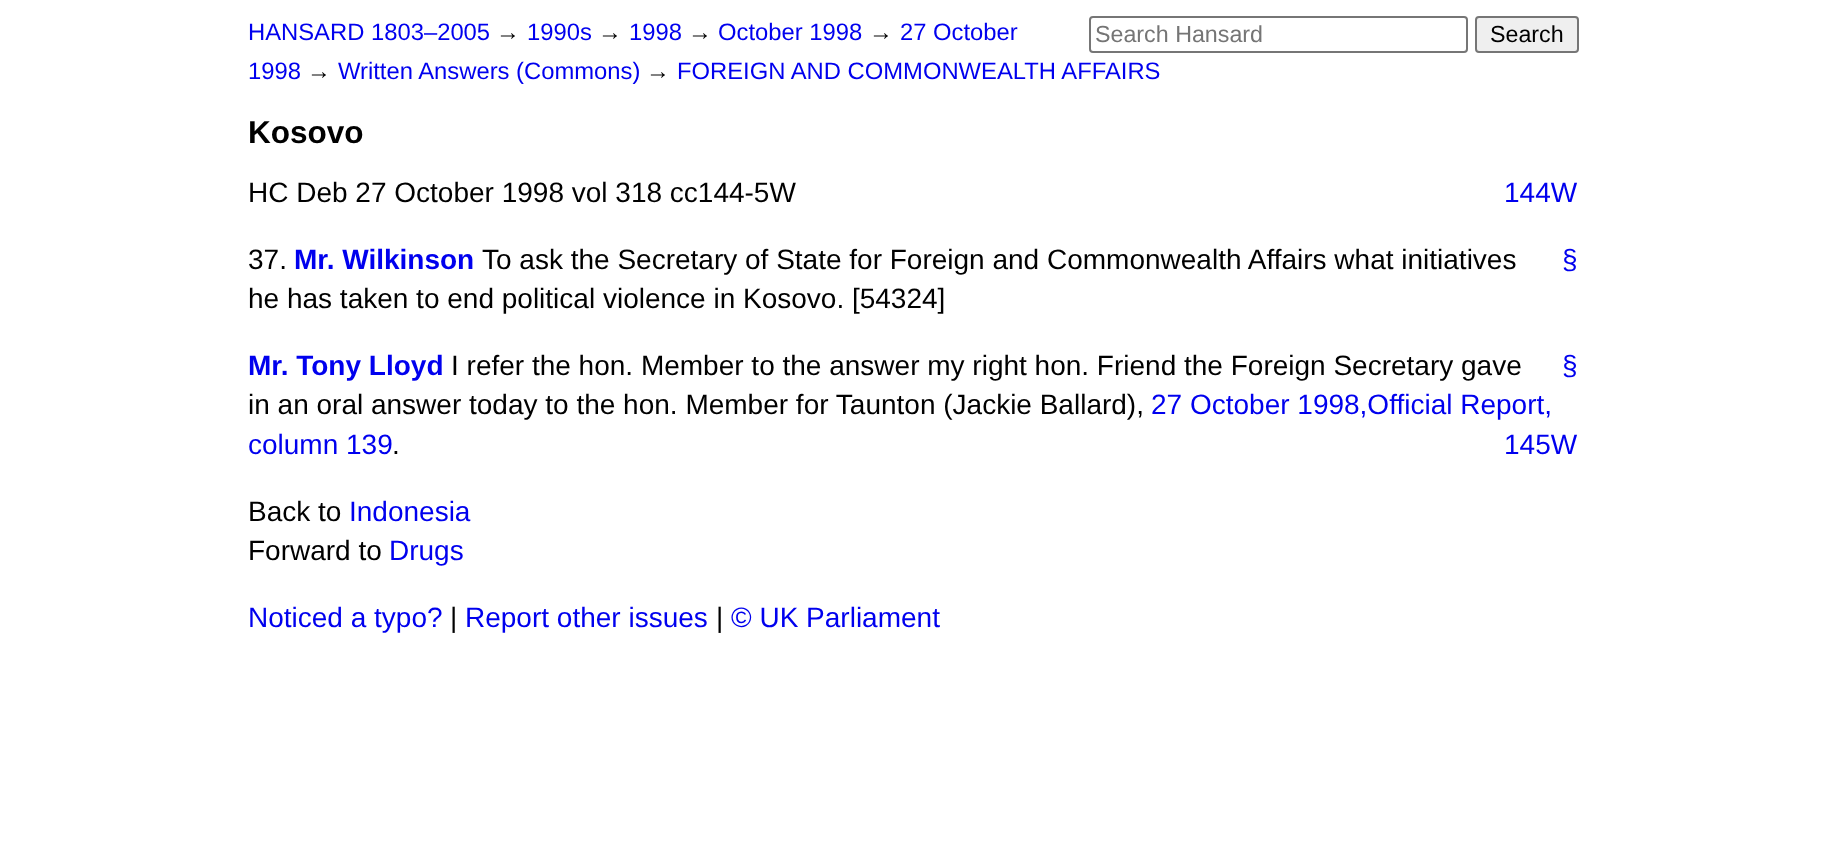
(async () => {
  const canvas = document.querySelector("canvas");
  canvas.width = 1825;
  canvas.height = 857;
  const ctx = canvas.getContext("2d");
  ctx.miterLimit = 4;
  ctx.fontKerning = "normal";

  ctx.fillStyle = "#ffffff";
  ctx.fillRect(0, 0, 1825, 857);
  ctx.beginPath();
  ctx.roundRect(1090, 17, 377, 35, 3);
  ctx.strokeStyle = "#767676";
  ctx.lineWidth = 2;
  ctx.stroke();
  ctx.fillStyle = "#efefef";
  ctx.beginPath();
  ctx.roundRect(1476, 17, 102, 35, 3);
  ctx.fill();
  ctx.stroke();
  ctx.font = "23.8px Liberation Sans";
  ctx.fillStyle = "#0000ee";
  ctx.fillText("HANSARD 1803–2005", 248, 40);
  ctx.fillStyle = "#000000";
  ctx.fillText("→", 496, 40);
  ctx.fillStyle = "#0000ee";
  ctx.fillText("1990s", 527, 40);
  ctx.fillStyle = "#000000";
  ctx.fillText("→", 598, 40);
  ctx.fillStyle = "#0000ee";
  ctx.fillText("1998", 629, 40);
  ctx.fillStyle = "#000000";
  ctx.fillText("→", 688, 40);
  ctx.fillStyle = "#0000ee";
  ctx.fillText("October 1998", 718, 40);
  ctx.fillStyle = "#000000";
  ctx.fillText("→", 869, 40);
  ctx.fillStyle = "#0000ee";
  ctx.fillText("27 October", 900, 40);
  ctx.fillText("1998", 248, 79);
  ctx.fillStyle = "#000000";
  ctx.fillText("→", 307, 79);
  ctx.fillStyle = "#0000ee";
  ctx.fillText("Written Answers (Commons)", 338, 79);
  ctx.fillStyle = "#000000";
  ctx.fillText("→", 646, 79);
  ctx.fillStyle = "#0000ee";
  ctx.fillText("FOREIGN AND COMMONWEALTH AFFAIRS", 677, 79);
  ctx.font = "23.25px Liberation Sans";
  ctx.fillStyle = "#757575";
  ctx.fillText("Search Hansard", 1095, 42);
  ctx.fillStyle = "#000000";
  ctx.fillText("Search", 1490, 42);
  ctx.font = "bold 31.5px Liberation Sans";
  ctx.fillText("Kosovo", 248, 143);
  ctx.font = "28px Liberation Sans";
  ctx.fillText("HC Deb 27 October 1998 vol 318 cc144-5W", 248, 202);
  ctx.fillStyle = "#0000ee";
  ctx.fillText("144W", 1504, 202);
  ctx.fillStyle = "#000000";
  ctx.fillText("37.", 248, 269);
  ctx.font = "bold 28px Liberation Sans";
  ctx.fillStyle = "#0000ee";
  ctx.fillText("Mr. Wilkinson", 294, 269);
  ctx.font = "28px Liberation Sans";
  ctx.fillStyle = "#000000";
  ctx.fillText("To ask the Secretary of State for Foreign and Commonwealth Affairs what initiatives", 482, 269);
  ctx.fillStyle = "#0000ee";
  ctx.fillText("§", 1562, 269);
  ctx.fillStyle = "#000000";
  ctx.fillText("he has taken to end political violence in Kosovo. [54324]", 248, 308);
  ctx.font = "bold 28px Liberation Sans";
  ctx.fillStyle = "#0000ee";
  ctx.fillText("Mr. Tony Lloyd", 248, 375);
  ctx.font = "28px Liberation Sans";
  ctx.fillStyle = "#000000";
  ctx.fillText("I refer the hon. Member to the answer my right hon. Friend the Foreign Secretary gave", 451, 375);
  ctx.fillStyle = "#0000ee";
  ctx.fillText("§", 1562, 375);
  ctx.fillStyle = "#000000";
  ctx.fillText("in an oral answer today to the hon. Member for Taunton (Jackie Ballard),", 248, 414);
  ctx.fillStyle = "#0000ee";
  ctx.fillText("27 October 1998,Official Report,", 1151, 414);
  ctx.fillText("column 139", 248, 454);
  ctx.fillStyle = "#000000";
  ctx.fillText(".", 392, 454);
  ctx.fillStyle = "#0000ee";
  ctx.fillText("145W", 1504, 454);
  ctx.fillStyle = "#000000";
  ctx.fillText("Back to", 248, 521);
  ctx.fillStyle = "#0000ee";
  ctx.fillText("Indonesia", 349, 521);
  ctx.fillStyle = "#000000";
  ctx.fillText("Forward to", 248, 560);
  ctx.fillStyle = "#0000ee";
  ctx.fillText("Drugs", 389, 560);
  ctx.fillText("Noticed a typo?", 248, 627);
  ctx.fillStyle = "#000000";
  ctx.fillText("|", 450, 627);
  ctx.fillStyle = "#0000ee";
  ctx.fillText("Report other issues", 465, 627);
  ctx.fillStyle = "#000000";
  ctx.fillText("|", 716, 627);
  ctx.fillStyle = "#0000ee";
  ctx.fillText("© UK Parliament", 731, 627);
})();
